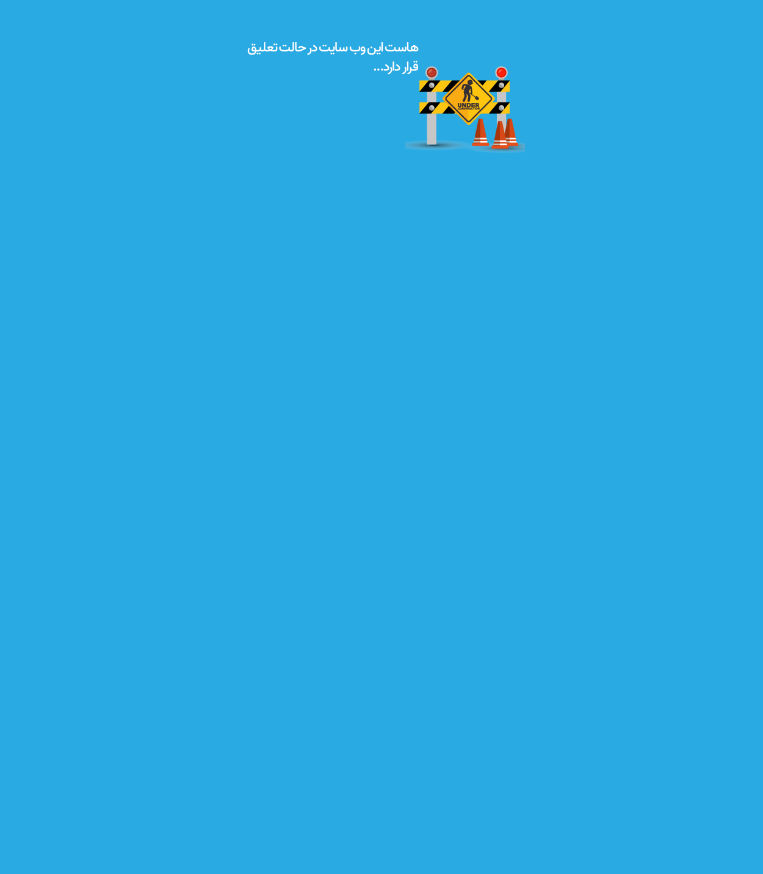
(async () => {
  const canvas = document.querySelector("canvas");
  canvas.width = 763;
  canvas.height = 874;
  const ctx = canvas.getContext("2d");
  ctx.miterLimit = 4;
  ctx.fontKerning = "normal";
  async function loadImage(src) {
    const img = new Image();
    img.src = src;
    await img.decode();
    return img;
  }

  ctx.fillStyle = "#29aae3";
  ctx.fillRect(0, 0, 763, 874);
  ctx.drawImage(await loadImage("img/1.png"), 247, 42, 278, 111);
})();
